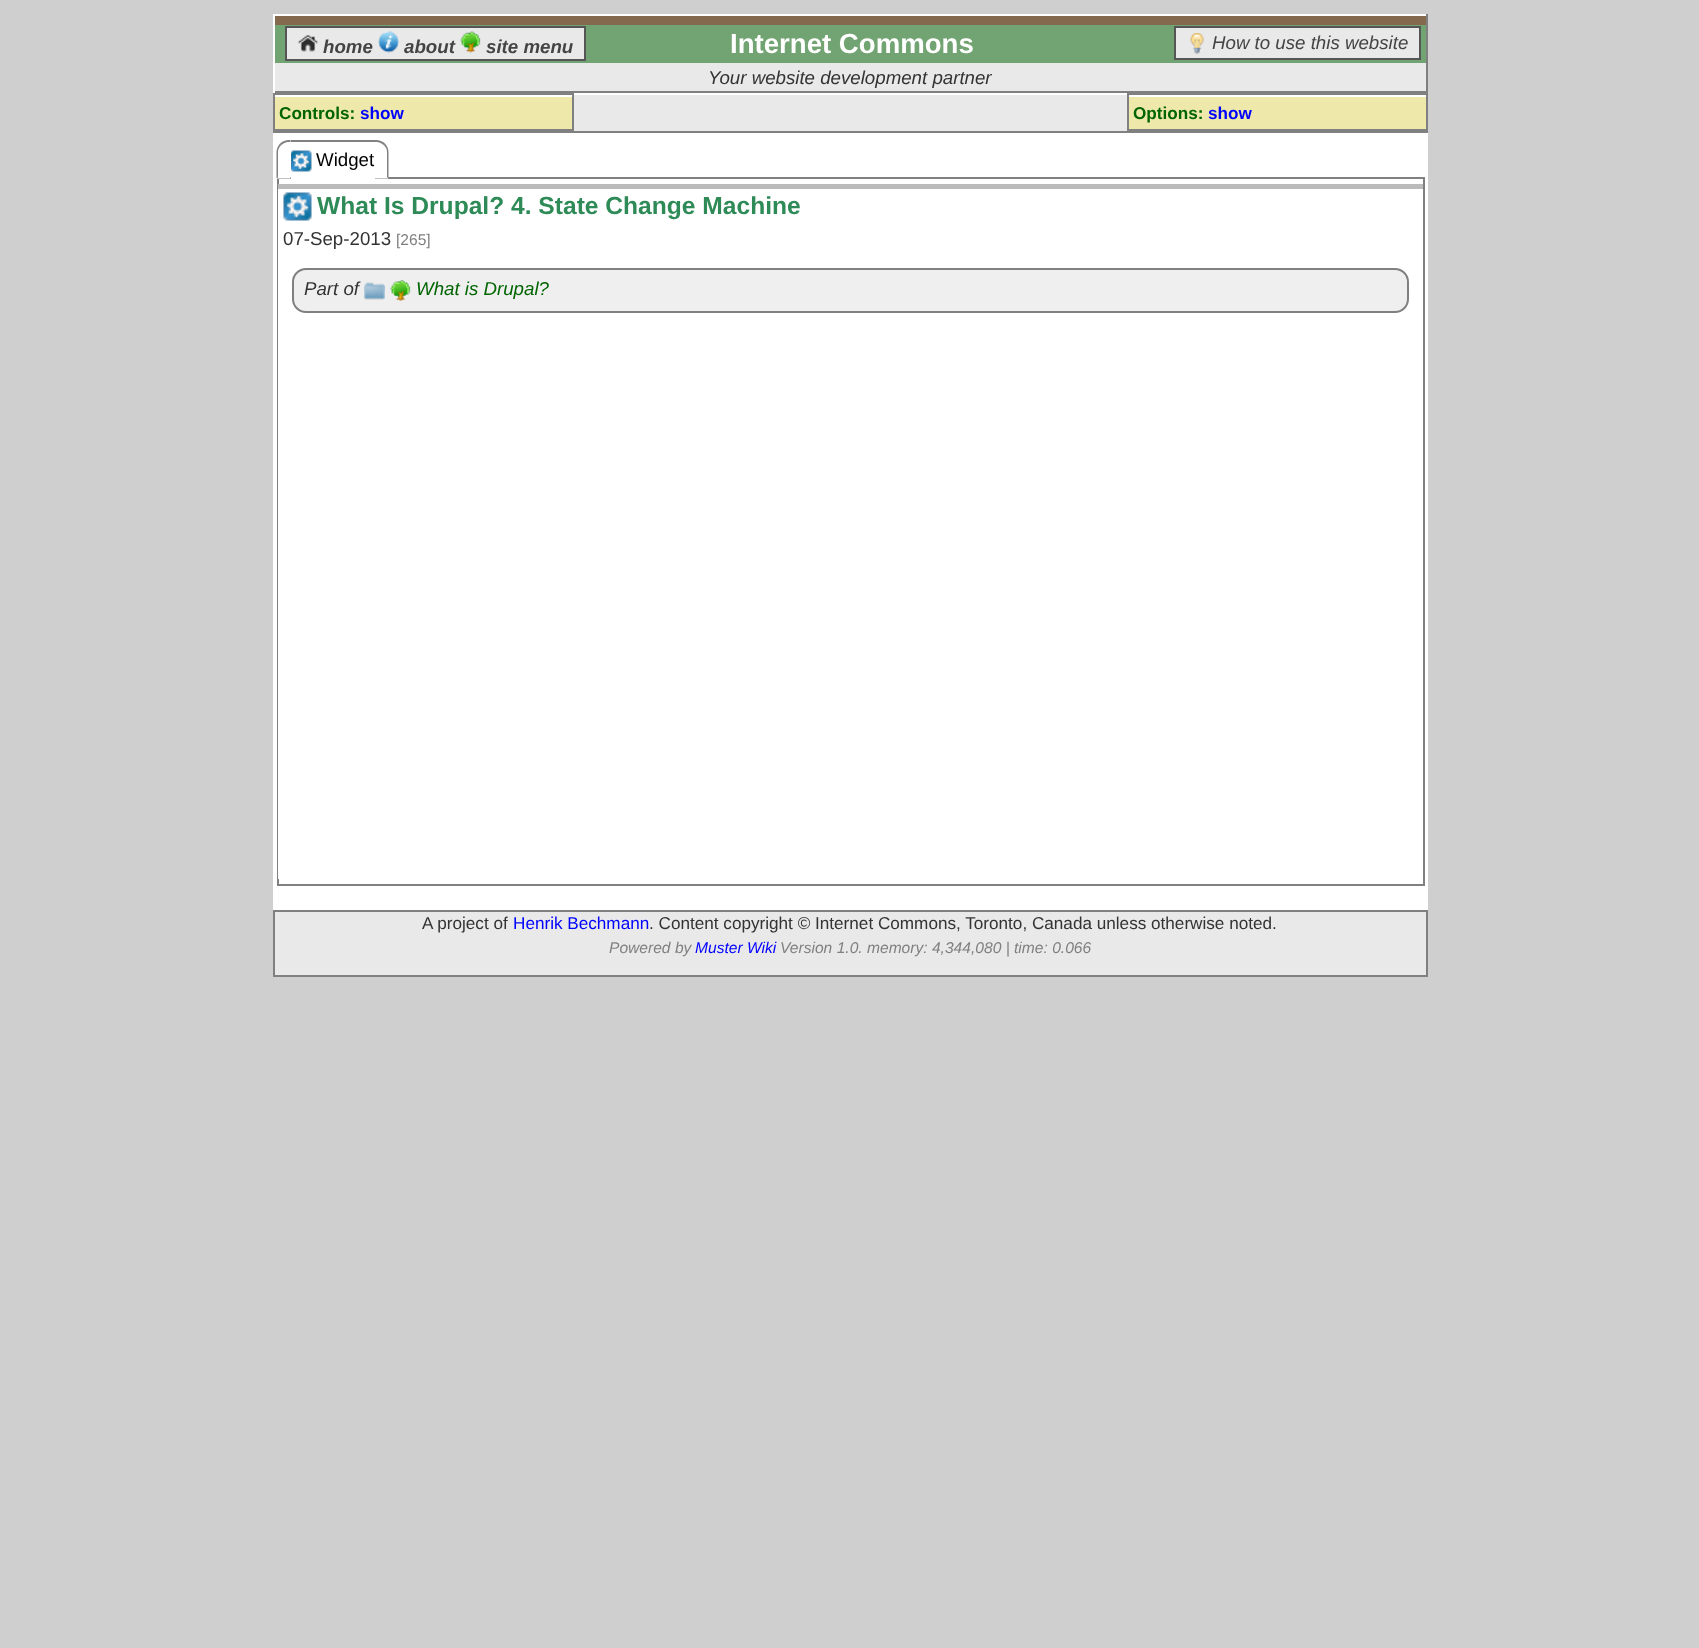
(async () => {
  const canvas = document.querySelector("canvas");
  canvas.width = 1699;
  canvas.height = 1648;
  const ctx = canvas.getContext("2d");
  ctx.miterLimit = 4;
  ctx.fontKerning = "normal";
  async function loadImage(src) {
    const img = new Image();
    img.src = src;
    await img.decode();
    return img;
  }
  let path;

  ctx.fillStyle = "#cfcfcf";
  ctx.fillRect(0, 0, 1699, 1648);
  for (const [x, y, w, h, color] of [
    [275, 63, 1151, 28, "#e9e9e9"],
    [273, 14, 1155, 2, "#ffffff"],
    [1426, 14, 2, 79, "#808080"],
    [273, 91, 1155, 2, "#808080"],
    [273, 14, 2, 79, "#ffffff"],
    [275, 25, 1151, 38, "#72a372"],
  ]) {
    ctx.fillStyle = color;
    ctx.fillRect(x, y, w, h);
  }
  ctx.fillStyle = "#e9e9e9";
  ctx.beginPath();
  ctx.rect(286, 27, 299, 33);
  ctx.fill();
  ctx.strokeStyle = "#555555";
  ctx.lineWidth = 2;
  ctx.stroke();
  ctx.drawImage(await loadImage("img/1.png"), 297, 35, 22, 17);
  ctx.drawImage(await loadImage("img/2.png"), 378, 31, 21, 22);
  ctx.drawImage(await loadImage("img/3.png"), 460, 31, 21, 22);
  ctx.fillStyle = "#85694e";
  ctx.fillRect(275, 16, 1151, 9);
  ctx.fillStyle = "#e9e9e9";
  ctx.beginPath();
  ctx.rect(1175, 27, 245, 32);
  ctx.fill();
  ctx.stroke();
  ctx.drawImage(await loadImage("img/4.png"), 1190, 33, 14, 22);
  ctx.fillRect(574, 95, 553, 36);
  ctx.fillStyle = "#eee8aa";
  ctx.fillRect(275, 97, 297, 32);
  ctx.strokeStyle = "#808080";
  ctx.strokeRect(274, 94, 299, 36);
  ctx.fillStyle = "#ffffff";
  ctx.fillRect(275, 95, 297, 2);
  ctx.fillStyle = "#eee8aa";
  ctx.fillRect(1129, 97, 297, 32);
  ctx.strokeRect(1128, 94, 299, 36);
  for (const [x, y, w, h, color] of [
    [1129, 95, 297, 2, "#ffffff"],
    [574, 93, 553, 2, "#ffffff"],
    [273, 131, 1155, 2, "#808080"],
    [273, 133, 1155, 777, "#ffffff"],
  ]) {
    ctx.fillStyle = color;
    ctx.fillRect(x, y, w, h);
  }
  ctx.fillStyle = "#808080";
  path = new Path2D("M289 140C285.5 140 282.5 141.5 280 143.5L281.5 145C284 142.5 287 142 290.5 142V140Z");
  ctx.fill(path);
  ctx.strokeRect(278, 178, 1146, 707);
  ctx.fillStyle = "#ffffff";
  path = new Path2D("M290.5 178.5V177H278L276.5 178.5Z");
  ctx.fill(path);
  ctx.fillStyle = "#808080";
  path = new Path2D("M276.5 178.5L278 177V152C278 149 279.5 146.5 281.5 145L280 143.5C278 146 276.5 149 276.5 152Z");
  ctx.fill(path);
  ctx.fillRect(291, 140, 84, 2);
  ctx.fillStyle = "#ffffff";
  ctx.fillRect(291, 177, 84, 2);
  ctx.drawImage(await loadImage("img/5.png"), 291, 150, 21, 22);
  ctx.fillStyle = "#808080";
  path = new Path2D("M374.5 140V142C378 142 381 142.5 383.5 145L385 143.5C382.5 141.5 379.5 140 376 140Z");
  ctx.fill(path);
  path = new Path2D("M387 177V152C387 149 385.5 146.5 383.5 145L385 143.5C387 146 388.5 149 388.5 152V178.5Z");
  ctx.fill(path);
  ctx.fillStyle = "#ffffff";
  path = new Path2D("M388.5 178.5L387 177H374.5V178.5Z");
  ctx.fill(path);
  ctx.fillRect(278, 189, 1, 690);
  ctx.fillStyle = "#bbbbbb";
  ctx.fillRect(278, 184, 1145, 5);
  ctx.drawImage(await loadImage("img/6.png"), 283, 192, 29, 29);
  ctx.fillStyle = "#efefef";
  ctx.beginPath();
  ctx.roundRect(293, 269, 1115, 43, 13);
  ctx.fill();
  ctx.stroke();
  ctx.drawImage(await loadImage("img/7.png"), 364, 282, 21, 18);
  ctx.drawImage(await loadImage("img/8.png"), 390, 280, 21, 21);
  ctx.fillStyle = "#e9e9e9";
  ctx.beginPath();
  ctx.rect(274, 911, 1153, 65);
  ctx.fill();
  ctx.stroke();
  ctx.font = "italic bold 18.7px Liberation Sans";
  ctx.fillStyle = "#444444";
  for (const [text, x, y] of [
    ["home", 323, 53],
    ["about", 404, 53],
    ["site menu", 486, 53],
  ]) {
    ctx.fillText(text, x, y);
  }
  ctx.font = "bold 27.6px Liberation Sans";
  ctx.fillStyle = "#ffffff";
  ctx.fillText("Internet Commons", 730, 53);
  ctx.font = "italic 18.7px Liberation Sans";
  ctx.fillStyle = "#444444";
  ctx.fillText("How to use this website", 1212, 49);
  ctx.fillStyle = "#333333";
  ctx.fillText("Your website development partner", 708, 84);
  ctx.font = "bold 17.15px Liberation Sans";
  ctx.fillStyle = "#006400";
  ctx.fillText("Controls:", 279, 119);
  ctx.fillStyle = "#0000ff";
  ctx.fillText("show", 360, 119);
  ctx.fillStyle = "#006400";
  ctx.fillText("Options:", 1133, 119);
  ctx.fillStyle = "#0000ff";
  ctx.fillText("show", 1208, 119);
  ctx.font = "18.7px Liberation Sans";
  ctx.fillStyle = "#000000";
  ctx.fillText("Widget", 316, 166);
  ctx.font = "bold 24.6px Liberation Sans";
  ctx.fillStyle = "#2e8b57";
  ctx.fillText("What Is Drupal? 4. State Change Machine", 317, 214);
  ctx.font = "18.7px Liberation Sans";
  ctx.fillStyle = "#333333";
  ctx.fillText("07-Sep-2013", 283, 245);
  ctx.font = "15.6px Liberation Sans";
  ctx.fillStyle = "#808080";
  ctx.fillText("[265]", 396, 245);
  ctx.font = "italic 18.7px Liberation Sans";
  ctx.fillStyle = "#333333";
  ctx.fillText("Part of", 304, 295);
  ctx.fillStyle = "#006400";
  ctx.fillText("What is Drupal?", 416, 295);
  ctx.font = "17.15px Liberation Sans";
  ctx.fillStyle = "#333333";
  ctx.fillText("A project of", 422, 929);
  ctx.fillStyle = "#0000ff";
  ctx.fillText("Henrik Bechmann", 513, 929);
  ctx.fillStyle = "#333333";
  ctx.fillText(". Content copyright © Internet Commons, Toronto, Canada unless otherwise noted.", 649, 929);
  ctx.font = "italic 15.6px Liberation Sans";
  ctx.fillStyle = "#808080";
  ctx.fillText("Powered by", 609, 953);
  ctx.fillStyle = "#0000ff";
  ctx.fillText("Muster Wiki", 695, 953);
  ctx.fillStyle = "#808080";
  ctx.fillText("Version 1.0. memory: 4,344,080 | time: 0.066", 780, 953);
})();
